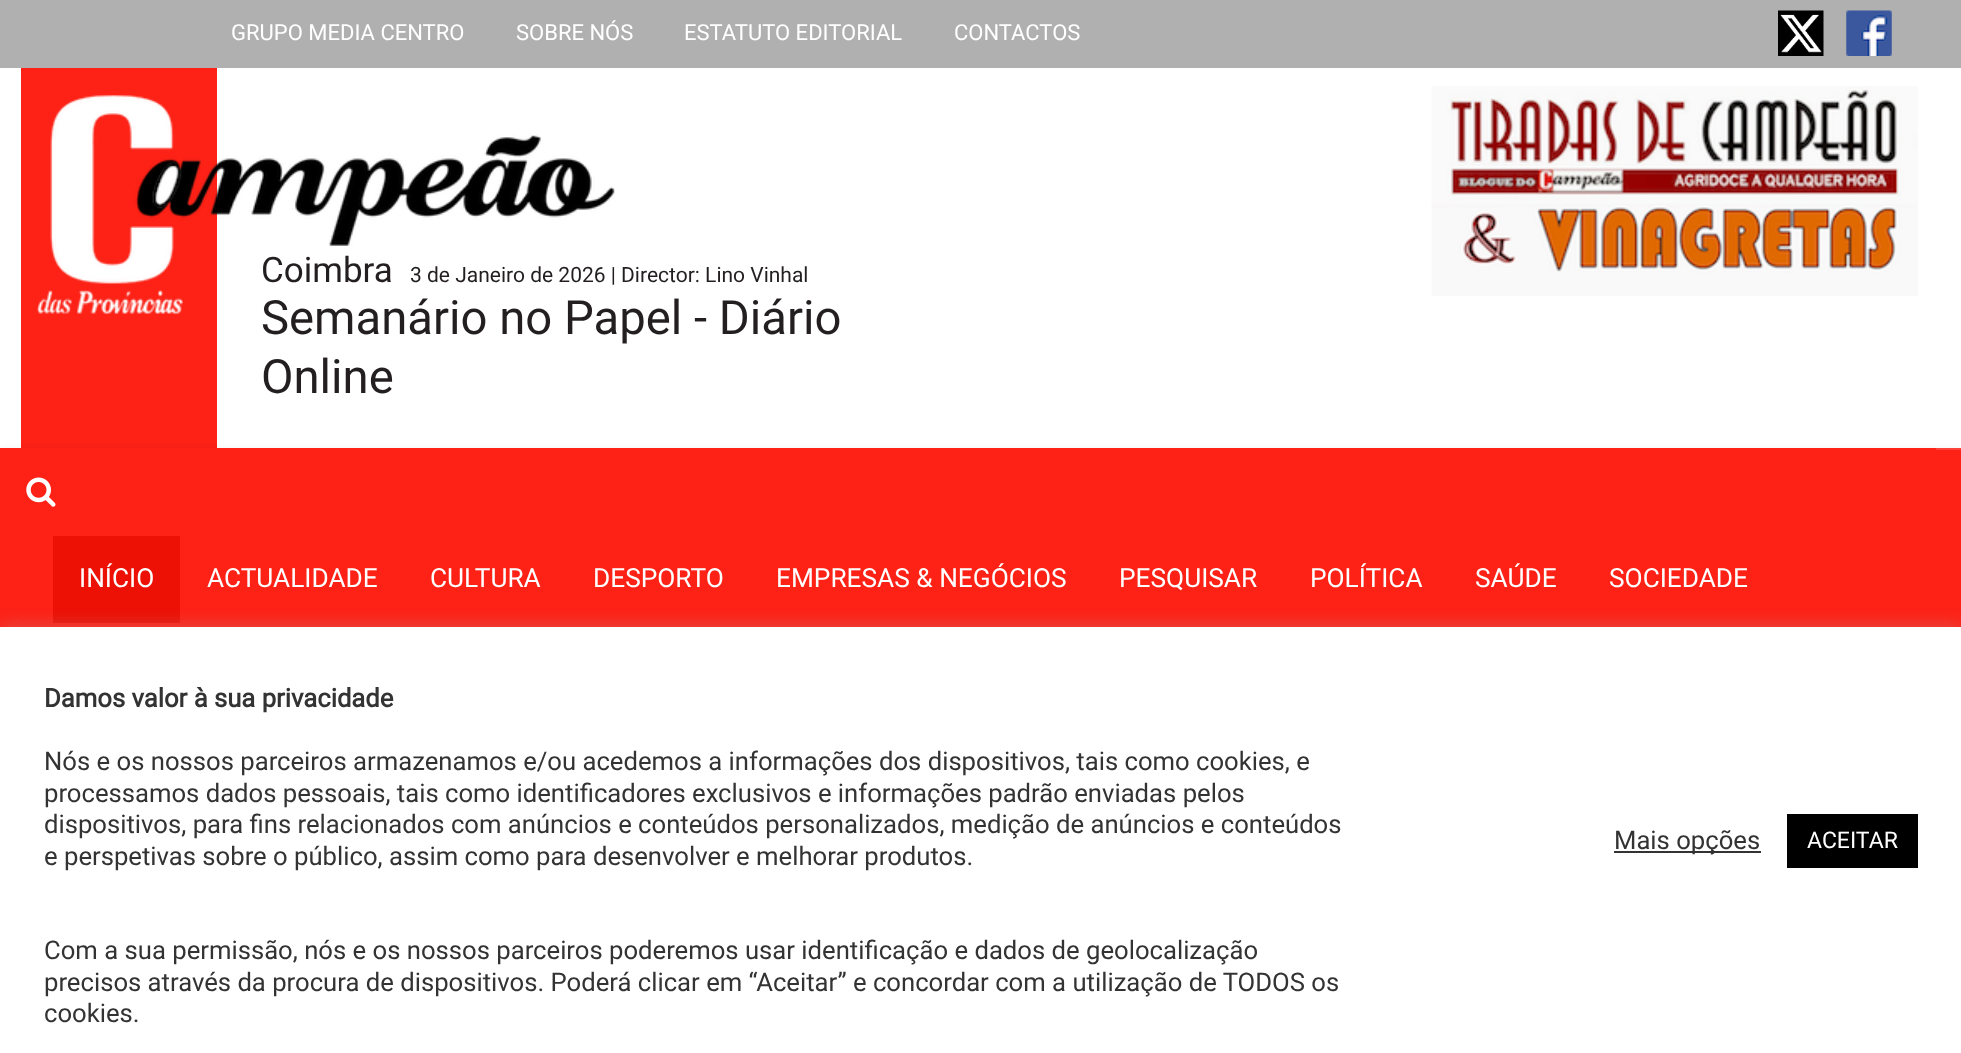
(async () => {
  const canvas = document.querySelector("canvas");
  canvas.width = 1961;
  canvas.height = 1053;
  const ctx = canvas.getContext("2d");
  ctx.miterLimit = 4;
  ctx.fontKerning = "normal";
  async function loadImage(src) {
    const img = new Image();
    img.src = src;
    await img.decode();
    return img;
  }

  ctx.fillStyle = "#ffffff";
  ctx.fillRect(0, 0, 1961, 1053);
  ctx.fillStyle = "#b0b0b0";
  ctx.fillRect(0, 0, 1961, 68);
  ctx.drawImage(await loadImage("img/1.png"), 1778, 10, 46, 46);
  ctx.drawImage(await loadImage("img/2.png"), 1846, 10, 46, 46);
  ctx.fillStyle = "#fd2116";
  ctx.fillRect(21, 68, 196, 380);
  ctx.drawImage(await loadImage("img/3.png"), 1431, 86, 487, 210);
  ctx.drawImage(await loadImage("img/4.png"), 36, 95, 579, 220);
  ctx.fillStyle = "rgba(0, 0, 0, 0.07)";
  ctx.filter = "blur(4.5px)";
  ctx.beginPath();
  ctx.rect(0, 450, 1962, 262);
  ctx.fill();
  ctx.filter = "none";
  ctx.fillStyle = "#fd2116";
  ctx.fillRect(0, 450, 1961, 177);
  ctx.fillStyle = "#fd4239";
  ctx.fillRect(1936, 448, 25, 2);
  ctx.drawImage(await loadImage("img/5.png"), 26, 477, 30, 30);
  ctx.fillStyle = "#fd2116";
  ctx.fillRect(0, 448, 1936, 2);
  ctx.fillStyle = "#ec1005";
  ctx.fillRect(53, 536, 127, 87);
  ctx.fillStyle = "rgba(172, 171, 171, 0.3)";
  ctx.filter = "blur(9px)";
  ctx.beginPath();
  ctx.rect(0, 625, 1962, 427);
  ctx.fill();
  ctx.filter = "none";
  for (const [x, y, w, h, color] of [
    [0, 627, 1961, 426, "#ffffff"],
    [1614, 851, 147, 2, "#333333"],
    [1787, 814, 131, 54, "#000000"],
  ]) {
    ctx.fillStyle = color;
    ctx.fillRect(x, y, w, h);
  }
  ctx.font = "22px Roboto";
  ctx.fillStyle = "#ffffff";
  for (const [text, x, y] of [
    ["GRUPO MEDIA CENTRO", 231, 40],
    ["SOBRE NÓS", 516, 40],
    ["ESTATUTO EDITORIAL", 684, 40],
    ["CONTACTOS", 954, 40],
  ]) {
    ctx.fillText(text, x, y);
  }
  ctx.font = "35px Roboto";
  ctx.fillStyle = "#231f21";
  ctx.fillText("Coimbra", 261, 282);
  ctx.font = "21px Roboto";
  ctx.fillText("3 de Janeiro de 2026 | Director: Lino Vinhal", 410, 282);
  ctx.font = "47.25px Roboto";
  ctx.fillText("Semanário no Papel - Diário", 261, 334);
  ctx.fillText("Online", 261, 393);
  ctx.font = "26.25px Roboto";
  ctx.fillStyle = "#ffffff";
  for (const [text, x, y] of [
    ["INÍCIO", 79, 587],
    ["ACTUALIDADE", 207, 587],
    ["CULTURA", 430, 587],
    ["DESPORTO", 593, 587],
    ["EMPRESAS & NEGÓCIOS", 776, 587],
    ["PESQUISAR", 1119, 587],
    ["POLÍTICA", 1310, 587],
    ["SAÚDE", 1475, 587],
    ["SOCIEDADE", 1609, 587],
  ]) {
    ctx.fillText(text, x, y);
  }
  ctx.font = "bold 25.67px Roboto";
  ctx.fillStyle = "#333333";
  ctx.fillText("Damos valor à sua privacidade", 44, 707);
  ctx.font = "25.67px Roboto";
  for (const [text, x, y] of [
    ["Nós e os nossos parceiros armazenamos e/ou acedemos a informações dos dispositivos, tais como cookies, e", 44, 770],
    ["processamos dados pessoais, tais como identificadores exclusivos e informações padrão enviadas pelos", 44, 802],
    ["dispositivos, para fins relacionados com anúncios e conteúdos personalizados, medição de anúncios e conteúdos", 44, 833],
    ["e perspetivas sobre o público, assim como para desenvolver e melhorar produtos.", 44, 865],
    ["Com a sua permissão, nós e os nossos parceiros poderemos usar identificação e dados de geolocalização", 44, 959],
    ["precisos através da procura de dispositivos. Poderá clicar em “Aceitar” e concordar com a utilização de TODOS os", 44, 991],
    ["cookies.", 44, 1022],
    ["Mais opções", 1614, 849],
  ]) {
    ctx.fillText(text, x, y);
  }
  ctx.font = "23px Roboto";
  ctx.fillStyle = "#ffffff";
  ctx.fillText("ACEITAR", 1807, 848);
})();
